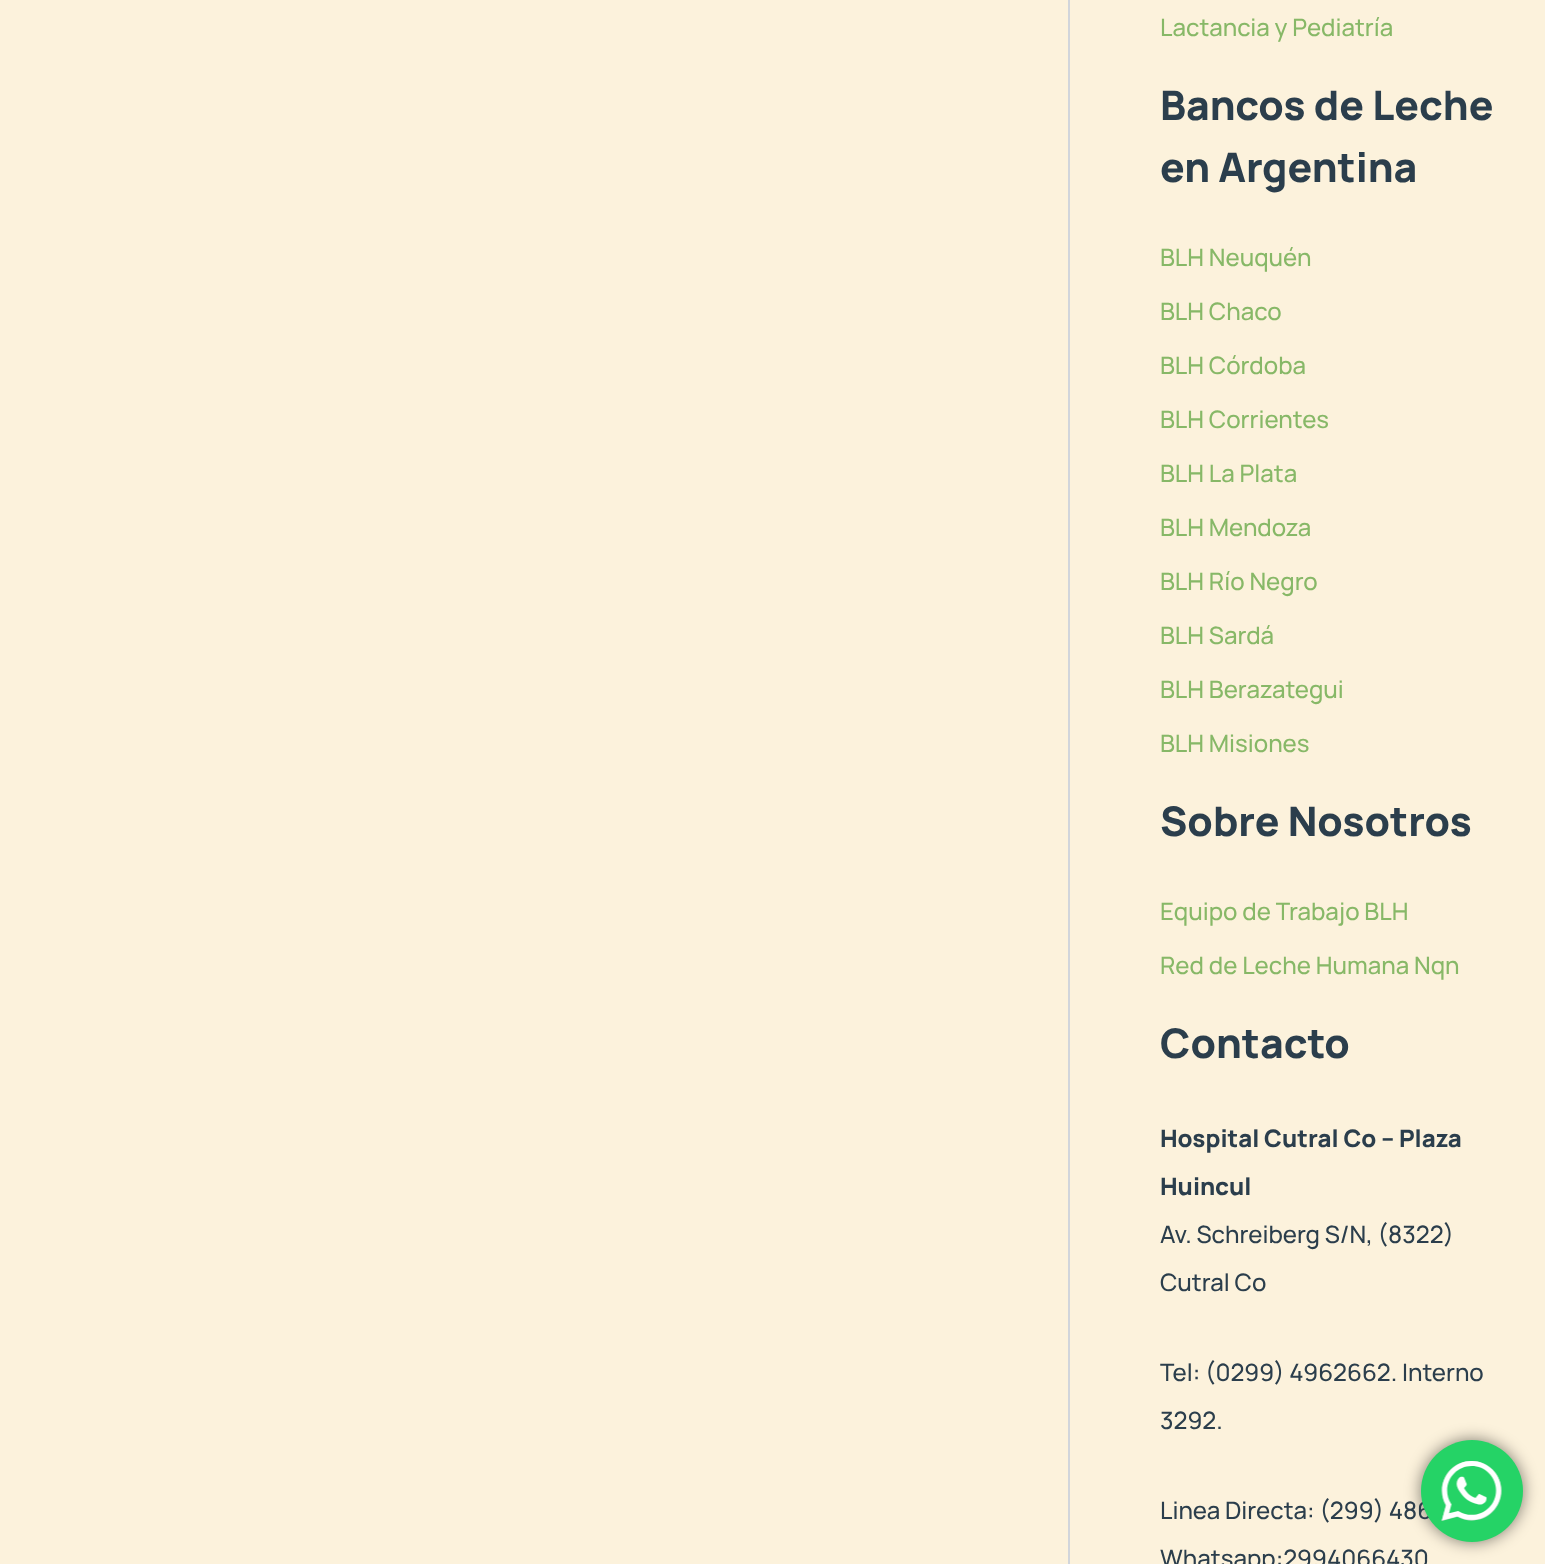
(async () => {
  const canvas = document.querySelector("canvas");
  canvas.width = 1545;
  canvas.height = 1564;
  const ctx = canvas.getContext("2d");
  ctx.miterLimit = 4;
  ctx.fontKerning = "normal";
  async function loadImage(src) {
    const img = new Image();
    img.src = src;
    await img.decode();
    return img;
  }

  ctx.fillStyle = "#fcf2dc";
  ctx.fillRect(0, 0, 1545, 1564);
  ctx.fillStyle = "#d1d5db";
  ctx.fillRect(1068, 0, 2, 1564);
  ctx.fillStyle = "rgba(0, 0, 0, 0.5)";
  ctx.filter = "blur(8px)";
  ctx.beginPath();
  ctx.roundRect(1421, 1440, 102, 102, 51);
  ctx.fill();
  ctx.filter = "none";
  ctx.font = "500 24px Manrope";
  ctx.fillStyle = "#87b867";
  ctx.fillText("Lactancia y Pediatría", 1160, 36);
  ctx.font = "800 40.75px Manrope";
  ctx.fillStyle = "#2b3e4c";
  ctx.fillText("Bancos de Leche", 1160, 120);
  ctx.fillText("en Argentina", 1160, 182);
  ctx.font = "500 24px Manrope";
  ctx.fillStyle = "#87b867";
  for (const [text, x, y] of [
    ["BLH Neuquén", 1160, 266],
    ["BLH Chaco", 1160, 320],
    ["BLH Córdoba", 1160, 374],
    ["BLH Corrientes", 1160, 428],
    ["BLH La Plata", 1160, 482],
    ["BLH Mendoza", 1160, 536],
    ["BLH Río Negro", 1160, 590],
    ["BLH Sardá", 1160, 644],
    ["BLH Berazategui", 1160, 698],
    ["BLH Misiones", 1160, 752],
  ]) {
    ctx.fillText(text, x, y);
  }
  ctx.font = "800 40.75px Manrope";
  ctx.fillStyle = "#2b3e4c";
  ctx.fillText("Sobre Nosotros", 1160, 836);
  ctx.font = "500 24px Manrope";
  ctx.fillStyle = "#87b867";
  ctx.fillText("Equipo de Trabajo BLH", 1160, 920);
  ctx.fillText("Red de Leche Humana Nqn", 1160, 974);
  ctx.font = "800 40.75px Manrope";
  ctx.fillStyle = "#2b3e4c";
  ctx.fillText("Contacto", 1160, 1058);
  ctx.font = "800 24px Manrope";
  ctx.fillText("Hospital Cutral Co – Plaza", 1160, 1147);
  ctx.fillText("Huincul", 1160, 1195);
  ctx.font = "500 24px Manrope";
  for (const [text, x, y] of [
    ["Av. Schreiberg S/N, (8322)", 1160, 1243],
    ["Cutral Co", 1160, 1291],
    ["Tel: (0299) 4962662. Interno", 1160, 1381],
    ["3292.", 1160, 1429],
    ["Linea Directa: (299) 486", 1160, 1519],
    ["Whatsapp:2994066430", 1160, 1567],
  ]) {
    ctx.fillText(text, x, y);
  }
  ctx.fillStyle = "#25d366";
  ctx.beginPath();
  ctx.arc(1472, 1491, 51, 0, Math.PI * 2);
  ctx.fill();
  ctx.drawImage(await loadImage("img/1.png"), 1441, 1461, 61, 60);
})();
